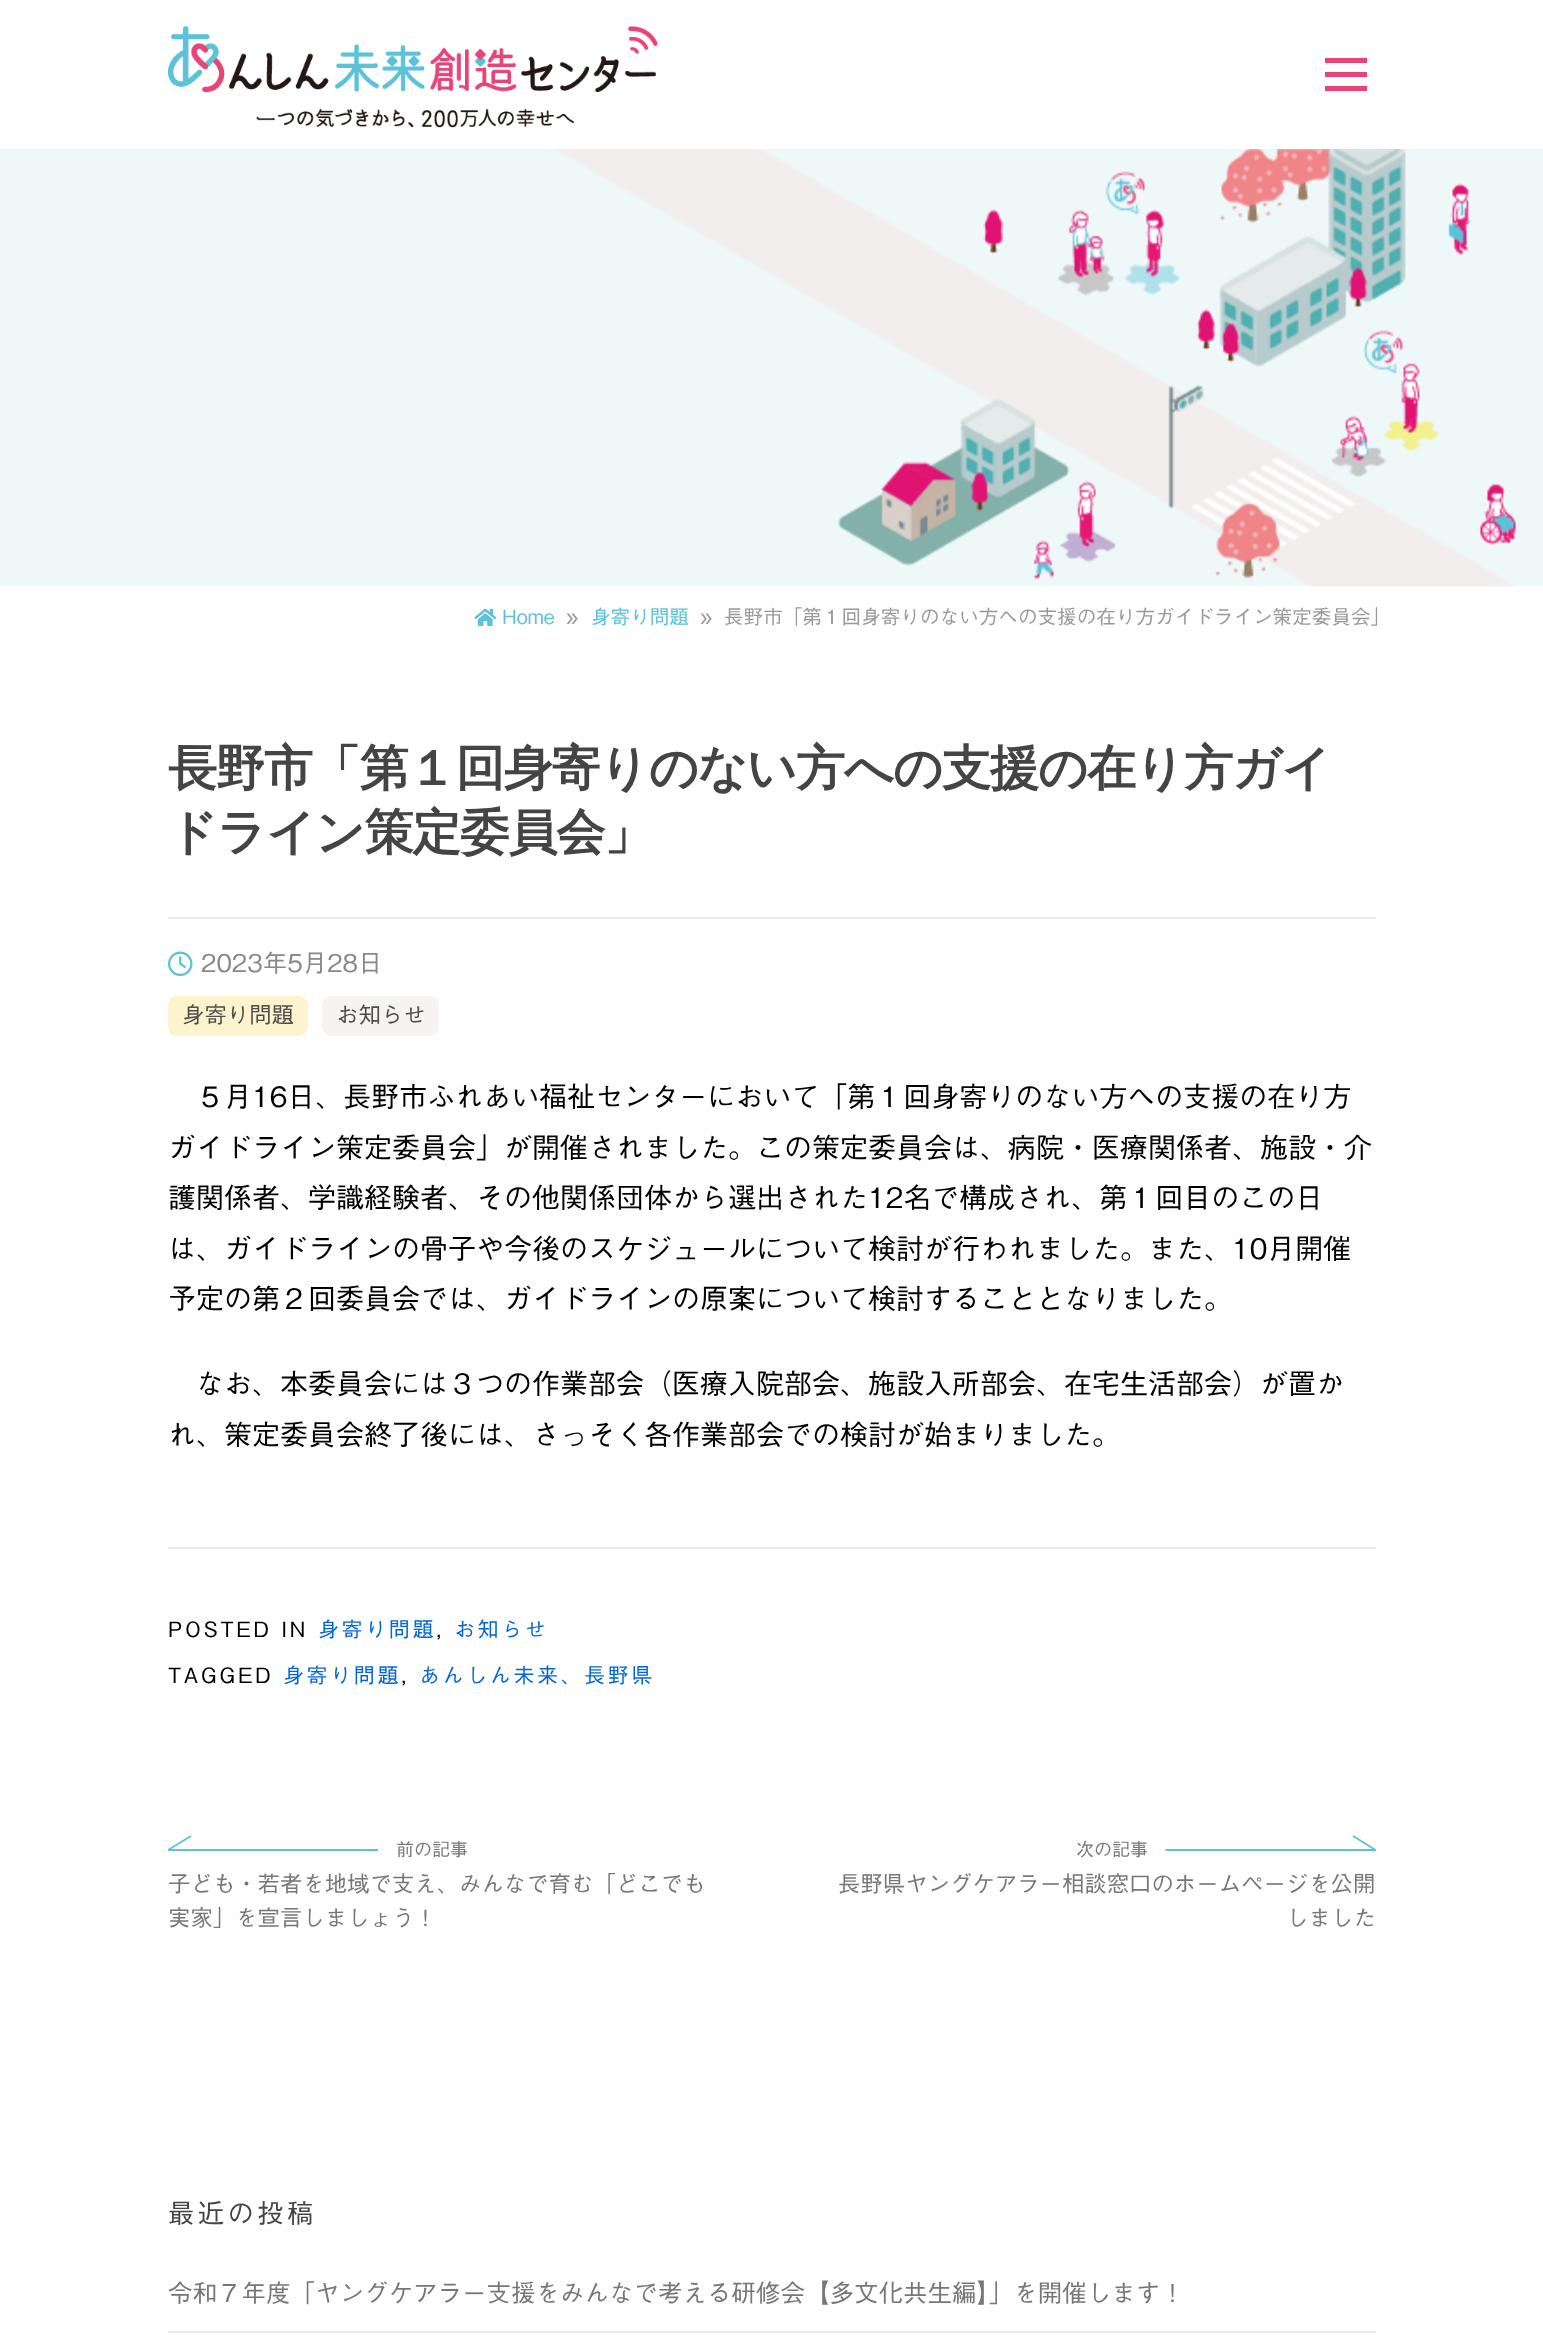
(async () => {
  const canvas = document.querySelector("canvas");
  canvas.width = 1543;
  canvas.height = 2350;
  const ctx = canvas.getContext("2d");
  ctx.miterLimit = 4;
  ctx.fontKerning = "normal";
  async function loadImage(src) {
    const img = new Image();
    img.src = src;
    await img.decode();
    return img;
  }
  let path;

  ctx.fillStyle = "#ffffff";
  ctx.fillRect(0, 0, 1543, 2350);
  ctx.drawImage(await loadImage("img/1.png"), 168, 26, 490, 102);
  for (const [x, y, w, h, color] of [
    [1325, 72, 42, 5, "#e84478"],
    [1325, 58, 42, 5, "#e84478"],
    [1325, 86, 42, 5, "#e84478"],
    [0, 149, 1543, 437, "#eff8f9"],
  ]) {
    ctx.fillStyle = color;
    ctx.fillRect(x, y, w, h);
  }
  ctx.drawImage(await loadImage("img/2.png"), 553, 149, 963, 438);
  ctx.drawImage(await loadImage("img/3.png"), 474, 608, 23, 18);
  ctx.fillStyle = "#e9e9e9";
  ctx.fillRect(168, 917, 1208, 2);
  ctx.drawImage(await loadImage("img/4.png"), 168, 951, 25, 26);
  ctx.fillStyle = "#fdf4ce";
  ctx.beginPath();
  ctx.roundRect(168, 996, 140, 40, 9);
  ctx.fill();
  ctx.fillStyle = "#f7f3f2";
  ctx.beginPath();
  ctx.roundRect(322, 996, 117, 40, 9);
  ctx.fill();
  ctx.fillStyle = "#e9e9e9";
  ctx.fillRect(168, 1547, 1208, 2);
  ctx.save();
  ctx.beginPath();
  ctx.rect(168, 1832, 228, 35);
  ctx.clip();
  path = new Path2D("M191 1836L168 1850H378");
  ctx.strokeStyle = "#5bc2d9";
  ctx.lineWidth = 1.8;
  ctx.stroke(path);
  ctx.restore();
  ctx.save();
  ctx.beginPath();
  ctx.rect(1148, 1832, 228, 35);
  ctx.clip();
  path = new Path2D("M1353 1836L1375.5 1850H1165.5");
  ctx.strokeStyle = "#5bc2d9";
  ctx.lineWidth = 1.8;
  ctx.stroke(path);
  ctx.restore();
  ctx.fillRect(168, 2331, 1208, 2);
  ctx.font = "19.6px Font";
  ctx.fillStyle = "#5bc2d9";
  ctx.fillText("Home", 502, 624);
  ctx.fillStyle = "#999999";
  ctx.fillText("»", 566, 624);
  ctx.fillStyle = "#5bc2d9";
  ctx.fillText("身寄り問題", 591, 624);
  ctx.fillStyle = "#999999";
  ctx.fillText("»", 700, 624);
  ctx.fillText("長野市「第１回身寄りのない方への支援の在り方ガイドライン策定委員会」", 724, 624);
  ctx.letterSpacing = "-1.05px";
  ctx.font = "bold 49px WenQuanYi Zen Hei";
  ctx.fillStyle = "#444444";
  ctx.fillText("長野市「第１回身寄りのない方への支援の在り方ガイ", 168, 785);
  ctx.fillText("ドライン策定委員会」", 168, 849);
  ctx.letterSpacing = "0px";
  ctx.font = "24.5px Font";
  ctx.fillStyle = "#888888";
  ctx.fillText("2023年5月28日", 201, 972);
  ctx.font = "22.4px Font";
  ctx.fillStyle = "#4d4d4d";
  ctx.fillText("身寄り問題", 182, 1023);
  ctx.fillText("お知らせ", 336, 1023);
  ctx.font = "28px Font";
  ctx.fillStyle = "#000000";
  for (const [text, x, y] of [
    ["５月16日、長野市ふれあい福祉センターにおいて「第１回身寄りのない方への支援の在り方", 196, 1107],
    ["ガイドライン策定委員会」が開催されました。この策定委員会は、病院・医療関係者、施設・介", 168, 1158],
    ["護関係者、学識経験者、その他関係団体から選出された12名で構成され、第１回目のこの日", 168, 1208],
    ["は、ガイドラインの骨子や今後のスケジュールについて検討が行われました。また、10月開催", 168, 1259],
    ["予定の第２回委員会では、ガイドラインの原案について検討することとなりました。", 168, 1309],
    ["なお、本委員会には３つの作業部会（医療入院部会、施設入所部会、在宅生活部会）が置か", 196, 1394],
    ["れ、策定委員会終了後には、さっそく各作業部会での検討が始まりました。", 168, 1445],
  ]) {
    ctx.fillText(text, x, y);
  }
  ctx.letterSpacing = "2.6px";
  ctx.font = "21px Font";
  ctx.fillText("POSTED IN", 168, 1637);
  ctx.fillStyle = "#0366d6";
  ctx.fillText("身寄り問題", 318, 1637);
  ctx.fillStyle = "#000000";
  ctx.fillText(",", 436, 1637);
  ctx.fillStyle = "#0366d6";
  ctx.fillText("お知らせ", 454, 1637);
  ctx.fillStyle = "#000000";
  ctx.fillText("TAGGED", 168, 1683);
  ctx.fillStyle = "#0366d6";
  ctx.fillText("身寄り問題", 283, 1683);
  ctx.fillStyle = "#000000";
  ctx.fillText(",", 401, 1683);
  ctx.fillStyle = "#0366d6";
  ctx.fillText("あんしん未来、長野県", 419, 1683);
  ctx.letterSpacing = "0px";
  ctx.font = "18px Font";
  ctx.fillStyle = "#777777";
  ctx.fillText("前の記事", 396, 1856);
  ctx.font = "22.4px Font";
  ctx.fillText("子ども・若者を地域で支え、みんなで育む「どこでも", 168, 1892);
  ctx.fillText("実家」を宣言しましょう！", 168, 1926);
  ctx.font = "18px Font";
  ctx.fillText("次の記事", 1076, 1856);
  ctx.font = "22.4px Font";
  ctx.fillText("長野県ヤングケアラー相談窓口のホームページを公開", 838, 1892);
  ctx.fillText("しました", 1286, 1926);
  ctx.letterSpacing = "3.5px";
  ctx.font = "26.25px Font";
  ctx.fillStyle = "#444444";
  ctx.fillText("最近の投稿", 168, 2223);
  ctx.letterSpacing = "0px";
  ctx.font = "24.5px Font";
  ctx.fillStyle = "#777777";
  ctx.fillText("令和７年度「ヤングケアラー支援をみんなで考える研修会【多文化共生編】」を開催します！", 168, 2302);
})();
